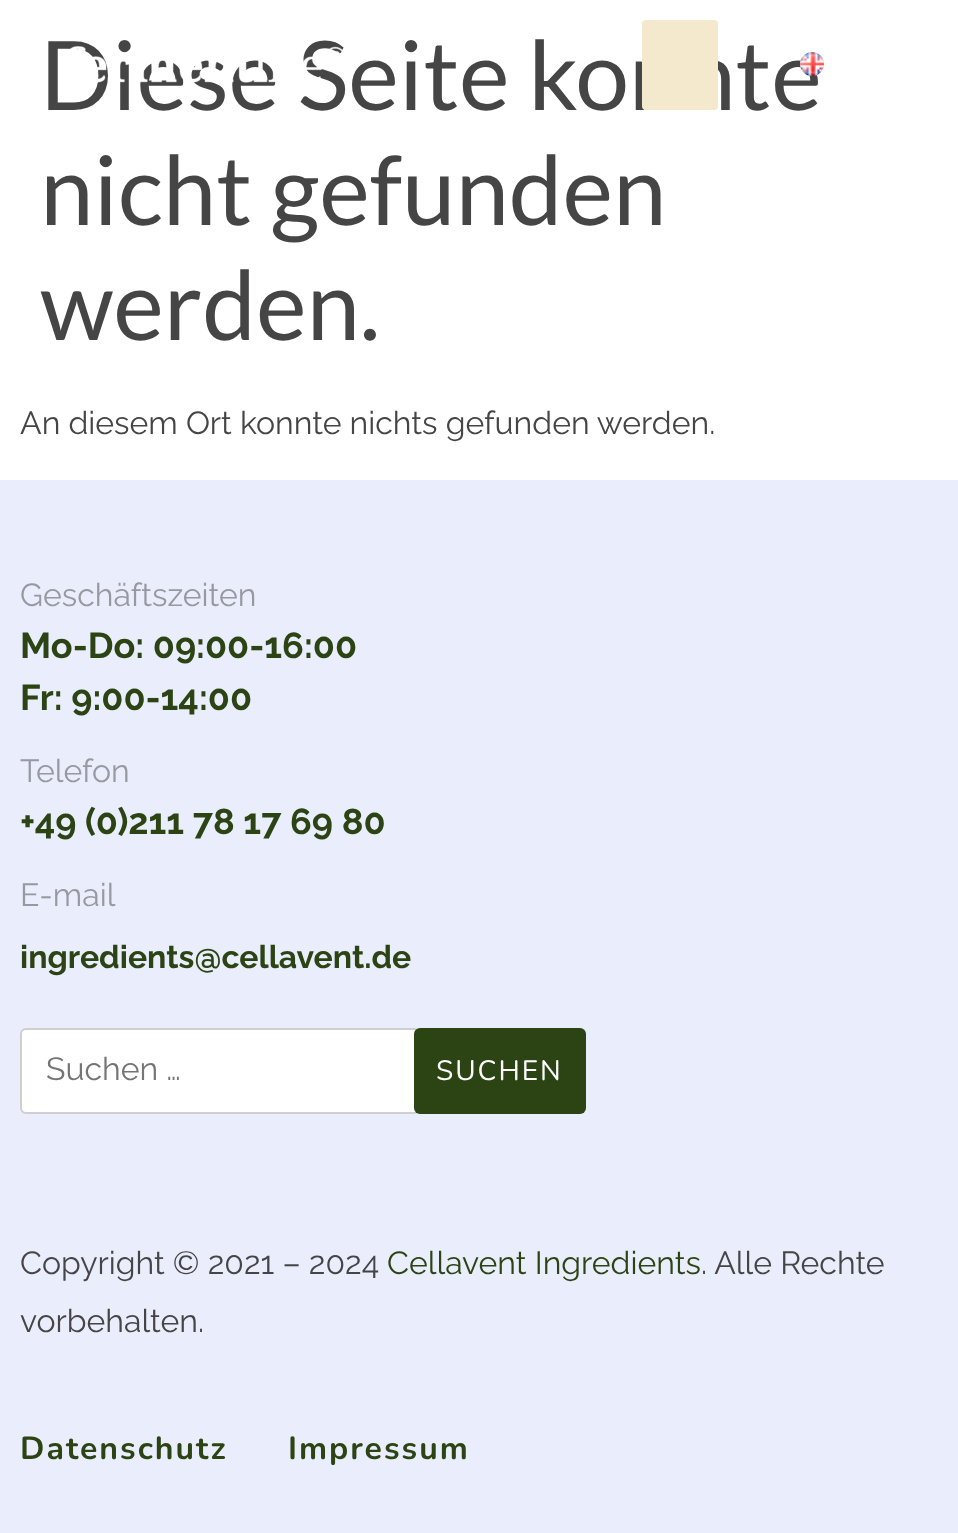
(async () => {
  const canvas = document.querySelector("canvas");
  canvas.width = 958;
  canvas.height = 1533;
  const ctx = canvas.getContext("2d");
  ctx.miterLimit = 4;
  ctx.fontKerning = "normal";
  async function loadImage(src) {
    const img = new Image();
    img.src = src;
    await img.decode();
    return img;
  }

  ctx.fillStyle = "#ffffff";
  ctx.fillRect(0, 0, 958, 1533);
  ctx.fillStyle = "#e9edfc";
  ctx.fillRect(0, 480, 958, 1053);
  ctx.fillStyle = "#ffffff";
  ctx.beginPath();
  ctx.roundRect(21, 1029, 398, 84, 5);
  ctx.fill();
  ctx.strokeStyle = "#cfcfcf";
  ctx.lineWidth = 2;
  ctx.stroke();
  ctx.fillStyle = "#2c4414";
  ctx.beginPath();
  ctx.roundRect(414, 1028, 172, 86, 6);
  ctx.fill();
  ctx.font = "96px Lato";
  ctx.fillStyle = "#454545";
  ctx.fillText("Diese Seite konnte", 40, 110);
  ctx.drawImage(await loadImage("img/2.png"), 800, 52, 24, 24);
  ctx.fillStyle = "#f4e9cd";
  ctx.beginPath();
  ctx.roundRect(642, 20, 76, 90, 4);
  ctx.fill();
  ctx.drawImage(await loadImage("img/1.png"), 64, 46, 281, 37);
  ctx.fillStyle = "#454545";
  ctx.fillText("nicht gefunden", 40, 225);
  ctx.fillText("werden.", 40, 340);
  ctx.font = "32px Raleway";
  ctx.fillText("An diesem Ort konnte nichts gefunden werden.", 20, 434);
  ctx.fillStyle = "#9799a1";
  ctx.fillText("Geschäftszeiten", 20, 606);
  ctx.font = "bold 36px Raleway";
  ctx.fillStyle = "#2c4414";
  ctx.fillText("Mo-Do: 09:00-16:00", 20, 658);
  ctx.fillText("Fr: 9:00-14:00", 20, 710);
  ctx.font = "32px Raleway";
  ctx.fillStyle = "#9799a1";
  ctx.fillText("Telefon", 20, 782);
  ctx.font = "bold 36px Raleway";
  ctx.fillStyle = "#2c4414";
  ctx.fillText("+49 (0)211 78 17 69 80", 20, 834);
  ctx.font = "32px Raleway";
  ctx.fillStyle = "#9799a1";
  ctx.fillText("E-mail", 20, 906);
  ctx.font = "bold 32px Raleway";
  ctx.fillStyle = "#2c4414";
  ctx.fillText("ingredients@cellavent.de", 20, 968);
  ctx.font = "32px Raleway";
  ctx.fillStyle = "#757575";
  ctx.fillText("Suchen …", 46, 1080);
  ctx.letterSpacing = "2px";
  ctx.font = "28px Nunito";
  ctx.fillStyle = "#ffffff";
  ctx.fillText("SUCHEN", 436, 1080);
  ctx.letterSpacing = "0px";
  ctx.font = "32px Raleway";
  ctx.fillStyle = "#454545";
  ctx.fillText("Copyright © 2021 – 2024", 20, 1274);
  ctx.fillStyle = "#2c4414";
  ctx.fillText("Cellavent Ingredients", 387, 1274);
  ctx.fillStyle = "#454545";
  ctx.fillText(". Alle Rechte", 701, 1274);
  ctx.fillText("vorbehalten.", 20, 1332);
  ctx.letterSpacing = "2px";
  ctx.font = "bold 32px Nunito";
  ctx.fillStyle = "#2c4414";
  ctx.fillText("Datenschutz", 20, 1459);
  ctx.fillText("Impressum", 288, 1459);
})();
